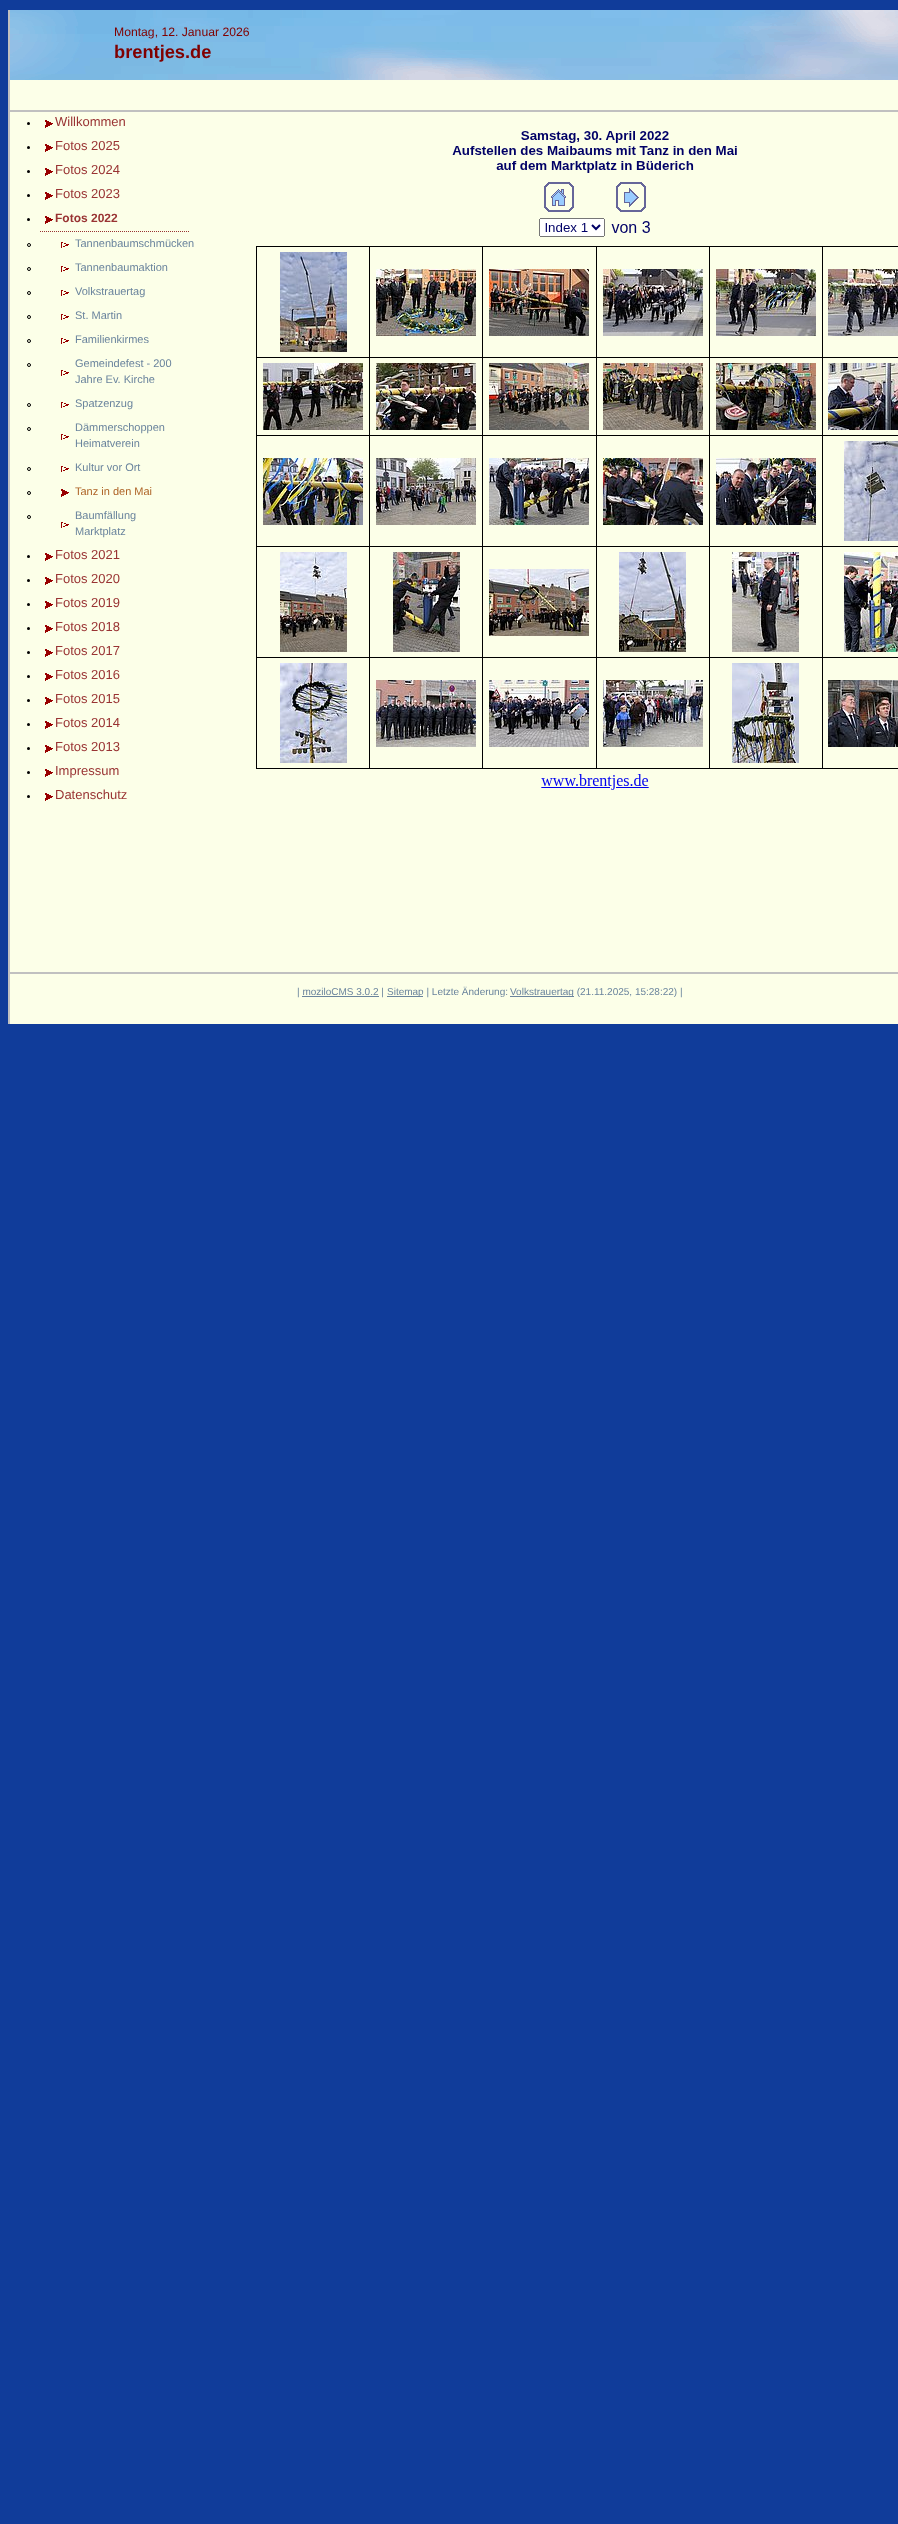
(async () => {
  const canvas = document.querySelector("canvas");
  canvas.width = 898;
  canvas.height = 2524;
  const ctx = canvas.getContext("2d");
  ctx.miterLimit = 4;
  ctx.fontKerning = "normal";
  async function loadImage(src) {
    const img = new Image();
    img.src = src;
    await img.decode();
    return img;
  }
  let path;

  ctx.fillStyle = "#103c9a";
  ctx.fillRect(0, 0, 898, 2524);
  ctx.fillStyle = "#fcffe8";
  ctx.fillRect(10, 80, 888, 944);
  ctx.fillStyle = "#c0c0c0";
  ctx.fillRect(8, 10, 2, 1014);
  ctx.drawImage(await loadImage("img/1.png"), 10, 10, 888, 70);
  ctx.fillRect(10, 110, 888, 2);
  ctx.fillStyle = "#000000";
  ctx.beginPath();
  ctx.arc(28.5, 123.5, 1.5, 0, Math.PI * 2);
  ctx.fill();
  ctx.drawImage(await loadImage("img/2.png"), 45, 120, 8, 8);
  ctx.beginPath();
  ctx.arc(28.5, 147.5, 1.5, 0, Math.PI * 2);
  ctx.fill();
  ctx.drawImage(await loadImage("img/2.png"), 45, 144, 8, 8);
  ctx.beginPath();
  ctx.arc(28.5, 171.5, 1.5, 0, Math.PI * 2);
  ctx.fill();
  ctx.drawImage(await loadImage("img/2.png"), 45, 168, 8, 8);
  ctx.beginPath();
  ctx.arc(28.5, 195.5, 1.5, 0, Math.PI * 2);
  ctx.fill();
  ctx.drawImage(await loadImage("img/2.png"), 45, 192, 8, 8);
  ctx.beginPath();
  ctx.arc(28.5, 219.5, 1.5, 0, Math.PI * 2);
  ctx.fill();
  ctx.drawImage(await loadImage("img/2.png"), 45, 216, 8, 8);
  path = new Path2D("M40 231.5H190");
  ctx.strokeStyle = "#993333";
  ctx.setLineDash([1, 1]);
  ctx.stroke(path);
  ctx.beginPath();
  ctx.arc(29, 245, 1.5, 0, Math.PI * 2);
  ctx.strokeStyle = "#000000";
  ctx.setLineDash([]);
  ctx.stroke();
  ctx.drawImage(await loadImage("img/3.png"), 61, 242, 8, 6);
  ctx.beginPath();
  ctx.arc(29, 269, 1.5, 0, Math.PI * 2);
  ctx.stroke();
  ctx.drawImage(await loadImage("img/3.png"), 61, 266, 8, 6);
  ctx.beginPath();
  ctx.arc(29, 293, 1.5, 0, Math.PI * 2);
  ctx.stroke();
  ctx.drawImage(await loadImage("img/3.png"), 61, 290, 8, 6);
  ctx.beginPath();
  ctx.arc(29, 317, 1.5, 0, Math.PI * 2);
  ctx.stroke();
  ctx.drawImage(await loadImage("img/3.png"), 61, 314, 8, 6);
  ctx.beginPath();
  ctx.arc(29, 341, 1.5, 0, Math.PI * 2);
  ctx.stroke();
  ctx.drawImage(await loadImage("img/3.png"), 61, 338, 8, 6);
  ctx.beginPath();
  ctx.arc(29, 365, 1.5, 0, Math.PI * 2);
  ctx.stroke();
  ctx.drawImage(await loadImage("img/3.png"), 61, 370, 8, 6);
  ctx.beginPath();
  ctx.arc(29, 405, 1.5, 0, Math.PI * 2);
  ctx.stroke();
  ctx.drawImage(await loadImage("img/3.png"), 61, 402, 8, 6);
  ctx.beginPath();
  ctx.arc(29, 429, 1.5, 0, Math.PI * 2);
  ctx.stroke();
  ctx.drawImage(await loadImage("img/3.png"), 61, 434, 8, 6);
  ctx.beginPath();
  ctx.arc(29, 469, 1.5, 0, Math.PI * 2);
  ctx.stroke();
  ctx.drawImage(await loadImage("img/3.png"), 61, 466, 8, 6);
  ctx.beginPath();
  ctx.arc(29, 493, 1.5, 0, Math.PI * 2);
  ctx.stroke();
  ctx.drawImage(await loadImage("img/2.png"), 61, 489, 8, 8);
  ctx.beginPath();
  ctx.arc(29, 517, 1.5, 0, Math.PI * 2);
  ctx.stroke();
  ctx.drawImage(await loadImage("img/3.png"), 61, 522, 8, 6);
  ctx.beginPath();
  ctx.arc(28.5, 556.5, 1.5, 0, Math.PI * 2);
  ctx.fill();
  ctx.drawImage(await loadImage("img/2.png"), 45, 553, 8, 8);
  ctx.beginPath();
  ctx.arc(28.5, 580.5, 1.5, 0, Math.PI * 2);
  ctx.fill();
  ctx.drawImage(await loadImage("img/2.png"), 45, 577, 8, 8);
  ctx.beginPath();
  ctx.arc(28.5, 604.5, 1.5, 0, Math.PI * 2);
  ctx.fill();
  ctx.drawImage(await loadImage("img/2.png"), 45, 601, 8, 8);
  ctx.beginPath();
  ctx.arc(28.5, 628.5, 1.5, 0, Math.PI * 2);
  ctx.fill();
  ctx.drawImage(await loadImage("img/2.png"), 45, 625, 8, 8);
  ctx.beginPath();
  ctx.arc(28.5, 652.5, 1.5, 0, Math.PI * 2);
  ctx.fill();
  ctx.drawImage(await loadImage("img/2.png"), 45, 649, 8, 8);
  ctx.beginPath();
  ctx.arc(28.5, 676.5, 1.5, 0, Math.PI * 2);
  ctx.fill();
  ctx.drawImage(await loadImage("img/2.png"), 45, 673, 8, 8);
  ctx.beginPath();
  ctx.arc(28.5, 700.5, 1.5, 0, Math.PI * 2);
  ctx.fill();
  ctx.drawImage(await loadImage("img/2.png"), 45, 697, 8, 8);
  ctx.beginPath();
  ctx.arc(28.5, 724.5, 1.5, 0, Math.PI * 2);
  ctx.fill();
  ctx.drawImage(await loadImage("img/2.png"), 45, 721, 8, 8);
  ctx.beginPath();
  ctx.arc(28.5, 748.5, 1.5, 0, Math.PI * 2);
  ctx.fill();
  ctx.drawImage(await loadImage("img/2.png"), 45, 745, 8, 8);
  ctx.beginPath();
  ctx.arc(28.5, 772.5, 1.5, 0, Math.PI * 2);
  ctx.fill();
  ctx.drawImage(await loadImage("img/2.png"), 45, 769, 8, 8);
  ctx.beginPath();
  ctx.arc(28.5, 796.5, 1.5, 0, Math.PI * 2);
  ctx.fill();
  ctx.drawImage(await loadImage("img/2.png"), 45, 793, 8, 8);
  ctx.drawImage(await loadImage("img/4.png"), 256, 131, 642, 659);
  for (const [x, y, w, h, color] of [
    [10, 972, 888, 2, "#c0c0c0"],
    [387, 996, 36, 1, "#6a849d"],
    [510, 996, 64, 1, "#6a849d"],
    [302, 996, 77, 1, "#6a849d"],
  ]) {
    ctx.fillStyle = color;
    ctx.fillRect(x, y, w, h);
  }
  ctx.font = "12.2px Liberation Sans";
  ctx.fillStyle = "#800000";
  ctx.fillText("Montag, 12. Januar 2026", 114, 36);
  ctx.font = "bold 18.25px Liberation Sans";
  ctx.fillText("brentjes.de", 114, 58);
  ctx.font = "13px Liberation Sans";
  ctx.fillStyle = "#993333";
  for (const [text, x, y] of [
    ["Willkommen", 55, 126],
    ["Fotos 2025", 55, 150],
    ["Fotos 2024", 55, 174],
    ["Fotos 2023", 55, 198],
  ]) {
    ctx.fillText(text, x, y);
  }
  ctx.font = "bold 12px Liberation Sans";
  ctx.fillText("Fotos 2022", 55, 222);
  ctx.font = "11px Liberation Sans";
  ctx.fillStyle = "#6a849d";
  for (const [text, x, y] of [
    ["Tannenbaumschmücken", 75, 247],
    ["Tannenbaumaktion", 75, 271],
    ["Volkstrauertag", 75, 295],
    ["St. Martin", 75, 319],
    ["Familienkirmes", 75, 343],
    ["Gemeindefest - 200", 75, 367],
    ["Jahre Ev. Kirche", 75, 383],
    ["Spatzenzug", 75, 407],
    ["Dämmerschoppen", 75, 431],
    ["Heimatverein", 75, 447],
    ["Kultur vor Ort", 75, 471],
  ]) {
    ctx.fillText(text, x, y);
  }
  ctx.fillStyle = "#ae6427";
  ctx.fillText("Tanz in den Mai", 75, 495);
  ctx.fillStyle = "#6a849d";
  ctx.fillText("Baumfällung", 75, 519);
  ctx.fillText("Marktplatz", 75, 535);
  ctx.font = "13px Liberation Sans";
  ctx.fillStyle = "#993333";
  for (const [text, x, y] of [
    ["Fotos 2021", 55, 559],
    ["Fotos 2020", 55, 583],
    ["Fotos 2019", 55, 607],
    ["Fotos 2018", 55, 631],
    ["Fotos 2017", 55, 655],
    ["Fotos 2016", 55, 679],
    ["Fotos 2015", 55, 703],
    ["Fotos 2014", 55, 727],
    ["Fotos 2013", 55, 751],
    ["Impressum", 55, 775],
    ["Datenschutz", 55, 799],
  ]) {
    ctx.fillText(text, x, y);
  }
  ctx.font = "10px Liberation Sans";
  ctx.fillStyle = "#6a849d";
  for (const [text, x, y] of [
    ["| moziloCMS 3.0.2 |", 297, 995],
    ["Sitemap | Letzte Änderung:", 387, 995],
    ["Volkstrauertag (21.11.2025, 15:28:22) |", 510, 995],
  ]) {
    ctx.fillText(text, x, y);
  }
})();
